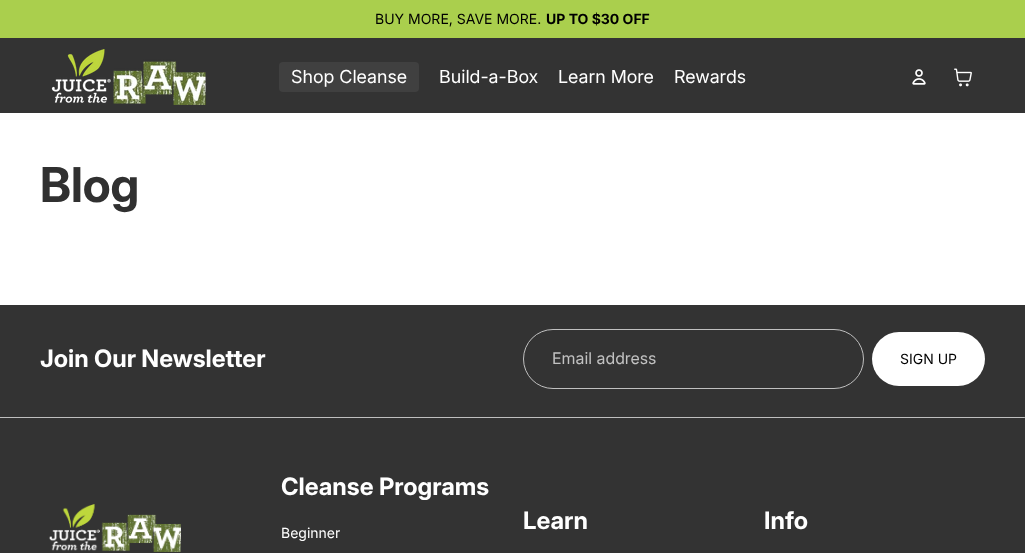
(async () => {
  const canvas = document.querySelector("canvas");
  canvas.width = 1025;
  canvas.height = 553;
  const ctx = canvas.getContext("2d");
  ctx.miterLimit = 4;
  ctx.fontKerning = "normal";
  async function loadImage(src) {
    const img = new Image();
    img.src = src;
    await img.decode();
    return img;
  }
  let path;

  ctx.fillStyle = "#ffffff";
  ctx.fillRect(0, 0, 1025, 553);
  ctx.fillStyle = "#aacf4d";
  ctx.fillRect(0, 0, 1025, 38);
  ctx.fillStyle = "#333333";
  ctx.fillRect(0, 38, 1025, 75);
  ctx.drawImage(await loadImage("img/1.png"), 51, 49, 155, 56);
  ctx.fillStyle = "#404040";
  ctx.beginPath();
  ctx.roundRect(279, 62, 140, 30, 4);
  ctx.fill();
  ctx.drawImage(await loadImage("img/2.png"), 912, 69, 14, 16);
  ctx.drawImage(await loadImage("img/3.png"), 954, 68, 18, 19);
  ctx.fillStyle = "#333333";
  ctx.fillRect(0, 305, 1025, 248);
  ctx.beginPath();
  ctx.roundRect(523.5, 329.5, 340, 59, 29.5);
  ctx.strokeStyle = "#c0c0c0";
  ctx.stroke();
  ctx.fillStyle = "#ffffff";
  ctx.beginPath();
  ctx.roundRect(872, 332, 113, 54, 27);
  ctx.fill();
  ctx.fillStyle = "#c0c0c0";
  path = new Path2D("M1025 417V418L1024 417Z");
  ctx.fill(path);
  ctx.fillStyle = "rgba(255, 255, 255, 0.69)";
  path = new Path2D("M1025 418H0V417H1024Z");
  ctx.fill(path);
  ctx.drawImage(await loadImage("img/4.png"), 49, 504, 132, 48);
  ctx.font = "14px Inter";
  ctx.fillStyle = "#000000";
  ctx.fillText("BUY MORE, SAVE MORE.", 375, 24);
  ctx.font = "bold 14px Inter";
  ctx.fillText("UP TO $30 OFF", 546, 24);
  ctx.font = "18px 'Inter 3'";
  ctx.fillStyle = "#ffffff";
  for (const [text, x, y] of [
    ["Shop Cleanse", 291, 83],
    ["Build-a-Box", 439, 83],
    ["Learn More", 558, 83],
    ["Rewards", 674, 83],
  ]) {
    ctx.fillText(text, x, y);
  }
  ctx.font = "bold 48px 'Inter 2'";
  ctx.fillStyle = "#303030";
  ctx.fillText("Blog", 40, 202);
  ctx.font = "bold 24px 'Inter 3'";
  ctx.fillStyle = "#ffffff";
  ctx.fillText("Join Our Newsletter", 40, 367);
  ctx.font = "16px 'Inter 2'";
  ctx.fillStyle = "#c2c2c2";
  ctx.fillText("Email address", 552, 364);
  ctx.font = "14px Inter";
  ctx.fillStyle = "#000000";
  ctx.fillText("SIGN UP", 900, 364);
  ctx.font = "bold 24px 'Inter 3'";
  ctx.fillStyle = "#ffffff";
  ctx.fillText("Cleanse Programs", 281, 495);
  ctx.font = "14px Inter";
  ctx.fillText("Beginner", 281, 538);
  ctx.font = "bold 24px 'Inter 3'";
  ctx.fillText("Learn", 523, 529);
  ctx.fillText("Info", 764, 529);
})();
